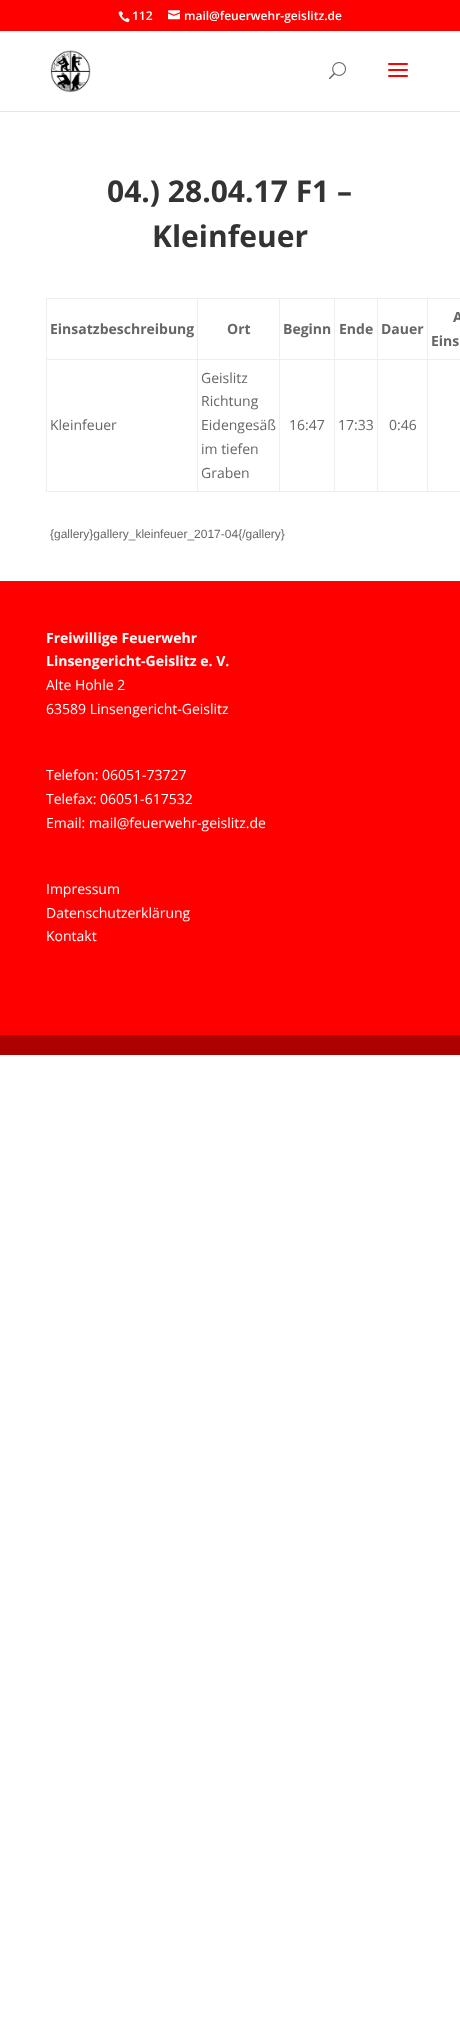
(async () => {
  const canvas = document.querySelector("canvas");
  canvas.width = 460;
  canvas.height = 2030;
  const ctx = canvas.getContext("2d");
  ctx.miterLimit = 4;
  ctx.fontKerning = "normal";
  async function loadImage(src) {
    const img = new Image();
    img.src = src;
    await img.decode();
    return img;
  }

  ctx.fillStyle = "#ffffff";
  ctx.fillRect(0, 0, 460, 2030);
  ctx.fillStyle = "#fe0000";
  ctx.fillRect(0, 0, 460, 31);
  ctx.drawImage(await loadImage("img/1.png"), 118, 11, 12, 12);
  ctx.drawImage(await loadImage("img/2.png"), 168, 10, 12, 10);
  ctx.fillStyle = "#e6e6e6";
  ctx.fillRect(0, 111, 460, 1);
  ctx.drawImage(await loadImage("img/3.png"), 50, 50, 41, 43);
  ctx.drawImage(await loadImage("img/4.png"), 329, 62, 17, 18);
  ctx.drawImage(await loadImage("img/5.png"), 388, 63, 20, 14);
  for (const [x, y, w, h, color] of [
    [46, 298, 414, 1, "#eeeeee"],
    [46, 491, 414, 1, "#eeeeee"],
    [46, 298, 1, 194, "#eeeeee"],
    [427, 359, 33, 1, "#eeeeee"],
    [427, 359, 1, 133, "#eeeeee"],
    [377, 359, 51, 1, "#eeeeee"],
    [377, 359, 1, 133, "#eeeeee"],
    [334, 359, 44, 1, "#eeeeee"],
    [334, 359, 1, 133, "#eeeeee"],
    [279, 359, 56, 1, "#eeeeee"],
    [279, 359, 1, 133, "#eeeeee"],
    [197, 359, 83, 1, "#eeeeee"],
    [197, 359, 1, 133, "#eeeeee"],
    [46, 359, 152, 1, "#eeeeee"],
    [197, 298, 1, 62, "#eeeeee"],
    [279, 298, 1, 62, "#eeeeee"],
    [334, 298, 1, 62, "#eeeeee"],
    [377, 298, 1, 62, "#eeeeee"],
    [427, 298, 1, 62, "#eeeeee"],
    [0, 581, 460, 454, "#fe0000"],
    [0, 1035, 460, 20, "#ad0000"],
  ]) {
    ctx.fillStyle = color;
    ctx.fillRect(x, y, w, h);
  }
  ctx.font = "600 12px Open Sans";
  ctx.fillStyle = "#ffffff";
  ctx.fillText("112", 132, 20);
  ctx.fillText("mail@feuerwehr-geislitz.de", 184, 20);
  ctx.font = "bold 30px Open Sans";
  ctx.fillStyle = "#333333";
  ctx.fillText("04.) 28.04.17 F1 –", 107, 202);
  ctx.fillText("Kleinfeuer", 152, 247);
  ctx.font = "bold 14px Open Sans";
  ctx.fillStyle = "#666666";
  for (const [text, x, y] of [
    ["Einsatzbeschreibung", 50, 334],
    ["Ort", 227, 334],
    ["Beginn", 283, 334],
    ["Ende", 339, 334],
    ["Dauer", 381, 334],
    ["A", 453, 322],
    ["Eins", 431, 346],
  ]) {
    ctx.fillText(text, x, y);
  }
  ctx.font = "14px Open Sans";
  for (const [text, x, y] of [
    ["Kleinfeuer", 50, 430],
    ["Geislitz", 201, 383],
    ["Richtung", 201, 406],
    ["Eidengesäß", 201, 430],
    ["im tiefen", 201, 454],
    ["Graben", 201, 478],
    ["16:47", 289, 430],
    ["17:33", 338, 430],
    ["0:46", 389, 430],
  ]) {
    ctx.fillText(text, x, y);
  }
  ctx.font = "12px Liberation Sans";
  ctx.fillText("{gallery}gallery_kleinfeuer_2017-04{/gallery}", 50, 538);
  ctx.font = "bold 14px Open Sans";
  ctx.fillStyle = "#ffffff";
  ctx.fillText("Freiwillige Feuerwehr", 46, 643);
  ctx.fillText("Linsengericht-Geislitz e. V.", 46, 666);
  ctx.font = "14px Open Sans";
  for (const [text, x, y] of [
    ["Alte Hohle 2", 46, 690],
    ["63589 Linsengericht-Geislitz", 46, 714],
    ["Telefon: 06051-73727", 46, 780],
    ["Telefax: 06051-617532", 46, 804],
    ["Email: mail@feuerwehr-geislitz.de", 46, 828],
    ["Impressum", 46, 894],
    ["Datenschutzerklärung", 46, 918],
    ["Kontakt", 46, 941],
  ]) {
    ctx.fillText(text, x, y);
  }
})();
